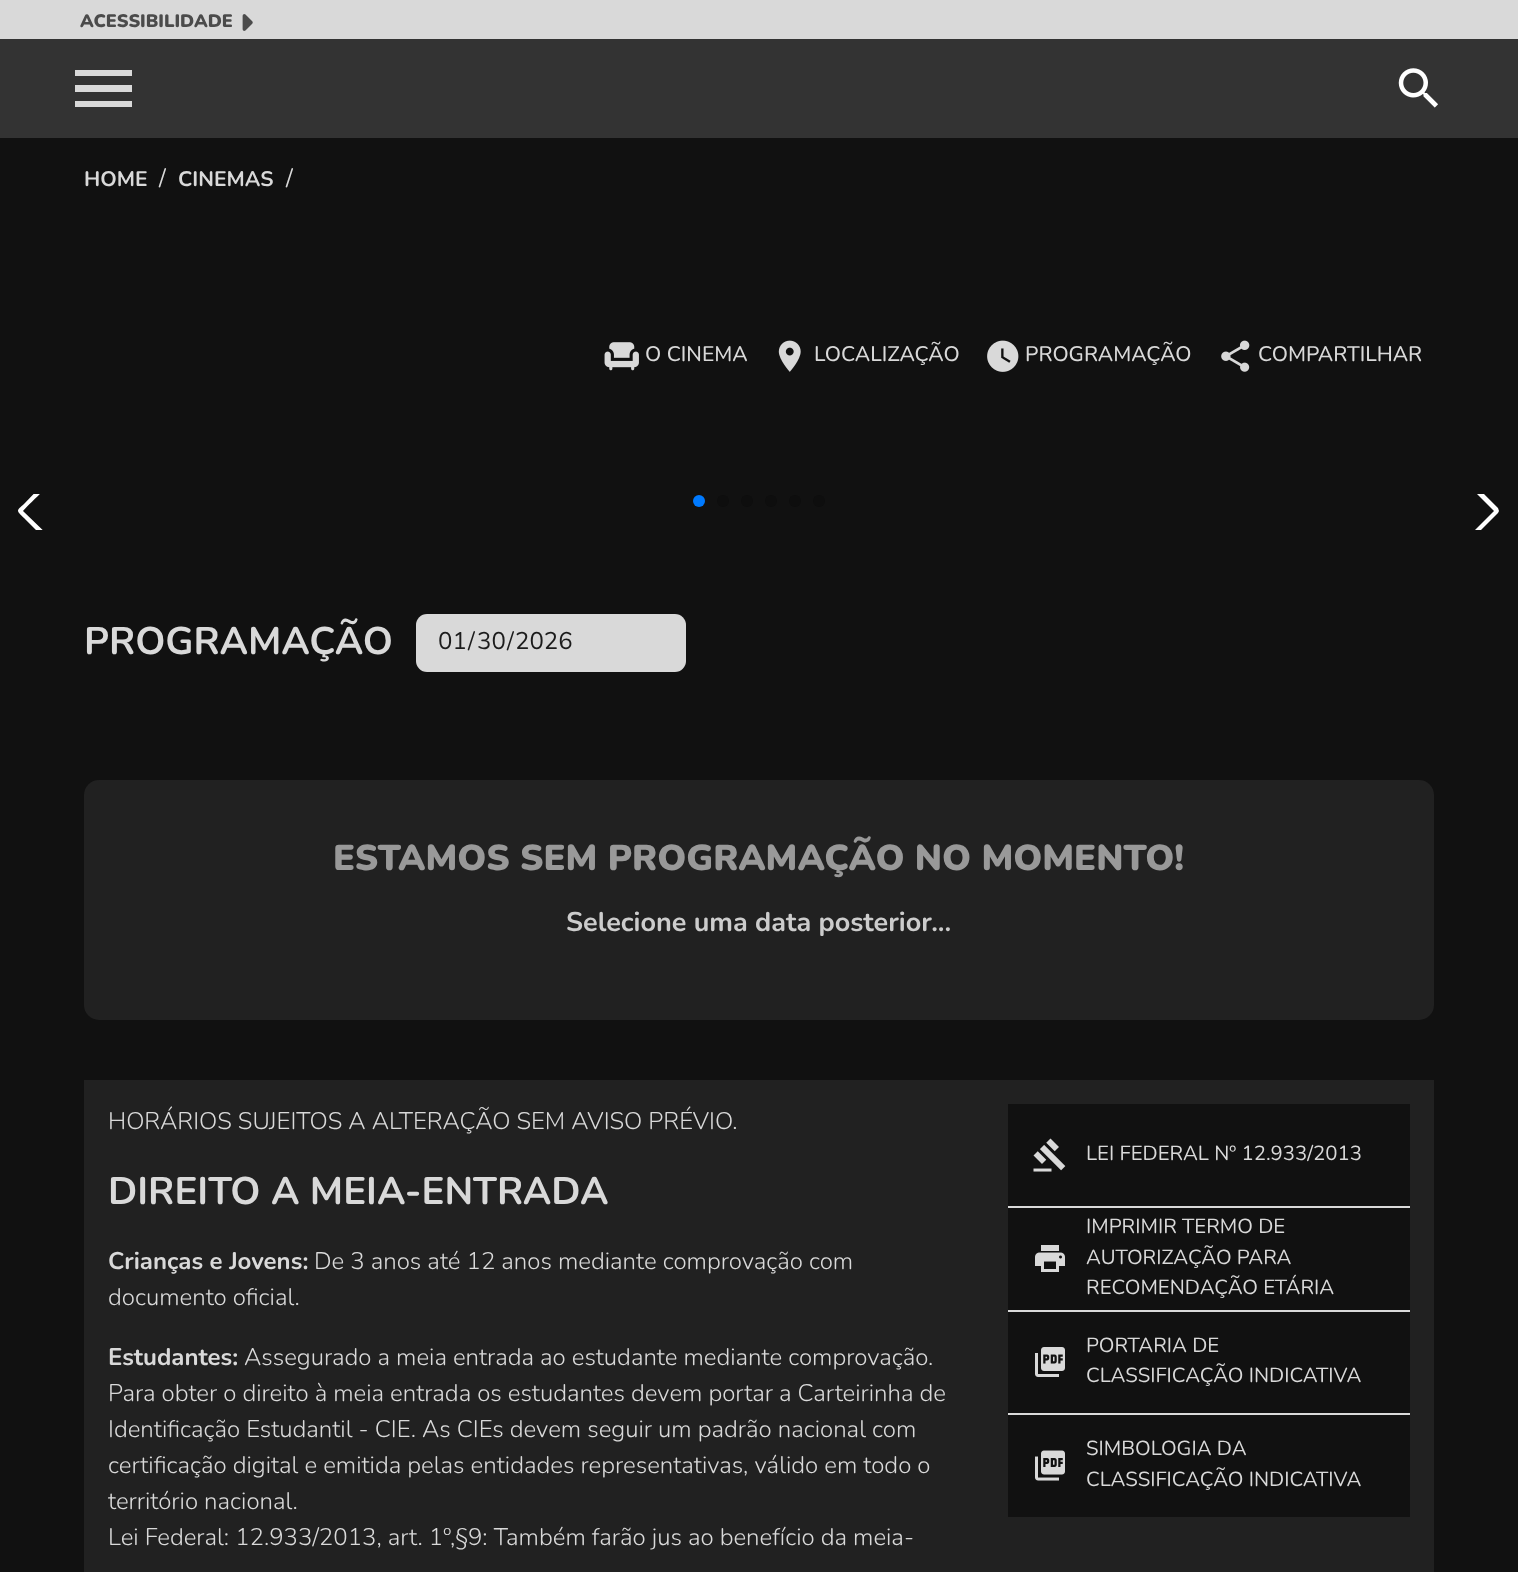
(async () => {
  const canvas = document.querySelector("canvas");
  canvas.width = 1518;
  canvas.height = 1572;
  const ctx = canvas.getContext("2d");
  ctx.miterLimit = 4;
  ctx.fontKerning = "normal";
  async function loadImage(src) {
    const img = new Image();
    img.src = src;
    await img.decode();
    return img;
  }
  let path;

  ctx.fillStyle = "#111111";
  ctx.fillRect(0, 0, 1518, 1572);
  ctx.fillStyle = "#d9d9d9";
  ctx.fillRect(0, 0, 1518, 39);
  ctx.drawImage(await loadImage("img/1.png"), 242, 14, 11, 17);
  ctx.fillStyle = "#333333";
  ctx.fillRect(0, 39, 1518, 99);
  ctx.fillStyle = "#d9d9d9";
  path = new Path2D("M75 107H132V101H75ZM75 92H132V85H75ZM75 70V76H132V70Z");
  ctx.fill(path);
  ctx.drawImage(await loadImage("img/2.png"), 1398, 68, 40, 40);
  ctx.drawImage(await loadImage("img/3.png"), 604, 342, 35, 29);
  ctx.drawImage(await loadImage("img/4.png"), 778, 340, 23, 32);
  ctx.drawImage(await loadImage("img/5.png"), 987, 340, 32, 32);
  ctx.drawImage(await loadImage("img/6.png"), 1221, 340, 29, 32);
  ctx.save();
  ctx.beginPath();
  ctx.rect(0, 494, 1518, 36);
  ctx.clip();
  ctx.fillStyle = "#ffffff";
  path = new Path2D("M48 479C49 478 52 479 52 481C52 483 26 507 23 511L52 539V541C51 546 46 541 43 537L24 518C16 510 16 511 24 504Z");
  ctx.fill(path);
  ctx.restore();
  ctx.fillStyle = "#007aff";
  ctx.beginPath();
  ctx.arc(699, 501, 6, 0, Math.PI * 2);
  ctx.fill();
  ctx.fillStyle = "#0e0e0e";
  ctx.beginPath();
  ctx.arc(723, 501, 6, 0, Math.PI * 2);
  ctx.fill();
  ctx.beginPath();
  ctx.arc(747, 501, 6, 0, Math.PI * 2);
  ctx.fill();
  ctx.beginPath();
  ctx.arc(771, 501, 6, 0, Math.PI * 2);
  ctx.fill();
  ctx.beginPath();
  ctx.arc(795, 501, 6, 0, Math.PI * 2);
  ctx.fill();
  ctx.beginPath();
  ctx.arc(819, 501, 6, 0, Math.PI * 2);
  ctx.fill();
  ctx.save();
  ctx.beginPath();
  ctx.rect(0, 494, 1518, 36);
  ctx.clip();
  ctx.fillStyle = "#ffffff";
  path = new Path2D("M1466 542C1465 541 1465 540 1466 539L1494 511L1466 483C1465 481 1465 480 1466 479C1467 478 1468 478 1469 479L1498 508L1499 511L1498 513L1469 542C1468 543 1467 543 1466 542Z");
  ctx.fill(path);
  ctx.restore();
  ctx.fillStyle = "#d9d9d9";
  ctx.beginPath();
  ctx.roundRect(416, 614, 270, 58, 11);
  ctx.fill();
  ctx.fillStyle = "#212121";
  ctx.beginPath();
  ctx.roundRect(84, 780, 1350, 240, 15);
  ctx.fill();
  ctx.fillRect(84, 1080, 1350, 492);
  ctx.fillStyle = "#111111";
  ctx.fillRect(1008, 1104, 402, 413);
  ctx.drawImage(await loadImage("img/7.png"), 1033, 1138, 33, 34);
  ctx.fillStyle = "#d9d9d9";
  ctx.fillRect(1008, 1206, 402, 2);
  ctx.drawImage(await loadImage("img/8.png"), 1035, 1245, 30, 27);
  ctx.fillRect(1008, 1310, 402, 2);
  ctx.drawImage(await loadImage("img/9.png"), 1035, 1347, 30, 30);
  ctx.fillRect(1008, 1413, 402, 2);
  ctx.drawImage(await loadImage("img/10.png"), 1035, 1450, 30, 31);
  ctx.font = "900 18px Nunito";
  ctx.fillStyle = "#4b4b4b";
  ctx.fillText("ACESSIBILIDADE", 80, 27);
  ctx.font = "bold 21px Nunito";
  ctx.fillStyle = "#d9d9d9";
  ctx.fillText("HOME", 84, 186);
  ctx.font = "24px Nunito";
  ctx.fillText("/", 159, 186);
  ctx.font = "bold 21px Nunito";
  ctx.fillText("CINEMAS", 178, 186);
  ctx.font = "24px Nunito";
  ctx.fillText("/", 286, 186);
  ctx.font = "500 21px Nunito";
  for (const [text, x, y] of [
    ["O CINEMA", 645, 361],
    ["LOCALIZAÇÃO", 814, 361],
    ["PROGRAMAÇÃO", 1025, 361],
    ["COMPARTILHAR", 1258, 361],
  ]) {
    ctx.fillText(text, x, y);
  }
  ctx.font = "bold 38.4px Nunito";
  ctx.fillText("PROGRAMAÇÃO", 84, 654);
  ctx.font = "24px Nunito";
  ctx.fillStyle = "#1c1c1c";
  for (const [text, x, y] of [
    ["01", 438, 649],
    ["/", 468, 649],
    ["30", 477, 649],
    ["/", 507, 649],
    ["2026", 515, 649],
  ]) {
    ctx.fillText(text, x, y);
  }
  ctx.font = "900 36px Nunito";
  ctx.fillStyle = "#999999";
  ctx.fillText("ESTAMOS SEM PROGRAMAÇÃO NO MOMENTO!", 333, 870);
  ctx.font = "bold 27px Nunito";
  ctx.fillStyle = "#cccccc";
  ctx.fillText("Selecione uma data posterior...", 566, 931);
  ctx.font = "300 24px Nunito";
  ctx.fillStyle = "#d9d9d9";
  ctx.fillText("HORÁRIOS SUJEITOS A ALTERAÇÃO SEM AVISO PRÉVIO.", 108, 1129);
  ctx.font = "bold 38.4px Nunito";
  ctx.fillText("DIREITO A MEIA-ENTRADA", 108, 1204);
  ctx.font = "bold 24px Nunito";
  ctx.fillText("Crianças e Jovens:", 108, 1269);
  ctx.font = "300 24px Nunito";
  ctx.fillText("De 3 anos até 12 anos mediante comprovação com", 314, 1269);
  ctx.fillText("documento oficial.", 108, 1305);
  ctx.font = "bold 24px Nunito";
  ctx.fillText("Estudantes:", 108, 1365);
  ctx.font = "300 24px Nunito";
  for (const [text, x, y] of [
    ["Assegurado a meia entrada ao estudante mediante comprovação.", 244, 1365],
    ["Para obter o direito à meia entrada os estudantes devem portar a Carteirinha de", 108, 1401],
    ["Identificação Estudantil - CIE. As CIEs devem seguir um padrão nacional com", 108, 1437],
    ["certificação digital e emitida pelas entidades representativas, válido em todo o", 108, 1473],
    ["território nacional.", 108, 1509],
    ["Lei Federal: 12.933/2013, art. 1º,§9: Também farão jus ao benefício da meia-", 108, 1545],
  ]) {
    ctx.fillText(text, x, y);
  }
  ctx.font = "20.4px Nunito";
  for (const [text, x, y] of [
    ["LEI FEDERAL Nº 12.933/2013", 1086, 1160],
    ["IMPRIMIR TERMO DE", 1086, 1233],
    ["AUTORIZAÇÃO PARA", 1086, 1264],
    ["RECOMENDAÇÃO ETÁRIA", 1086, 1294],
    ["PORTARIA DE", 1086, 1352],
    ["CLASSIFICAÇÃO INDICATIVA", 1086, 1382],
    ["SIMBOLOGIA DA", 1086, 1455],
    ["CLASSIFICAÇÃO INDICATIVA", 1086, 1486],
  ]) {
    ctx.fillText(text, x, y);
  }
})();
